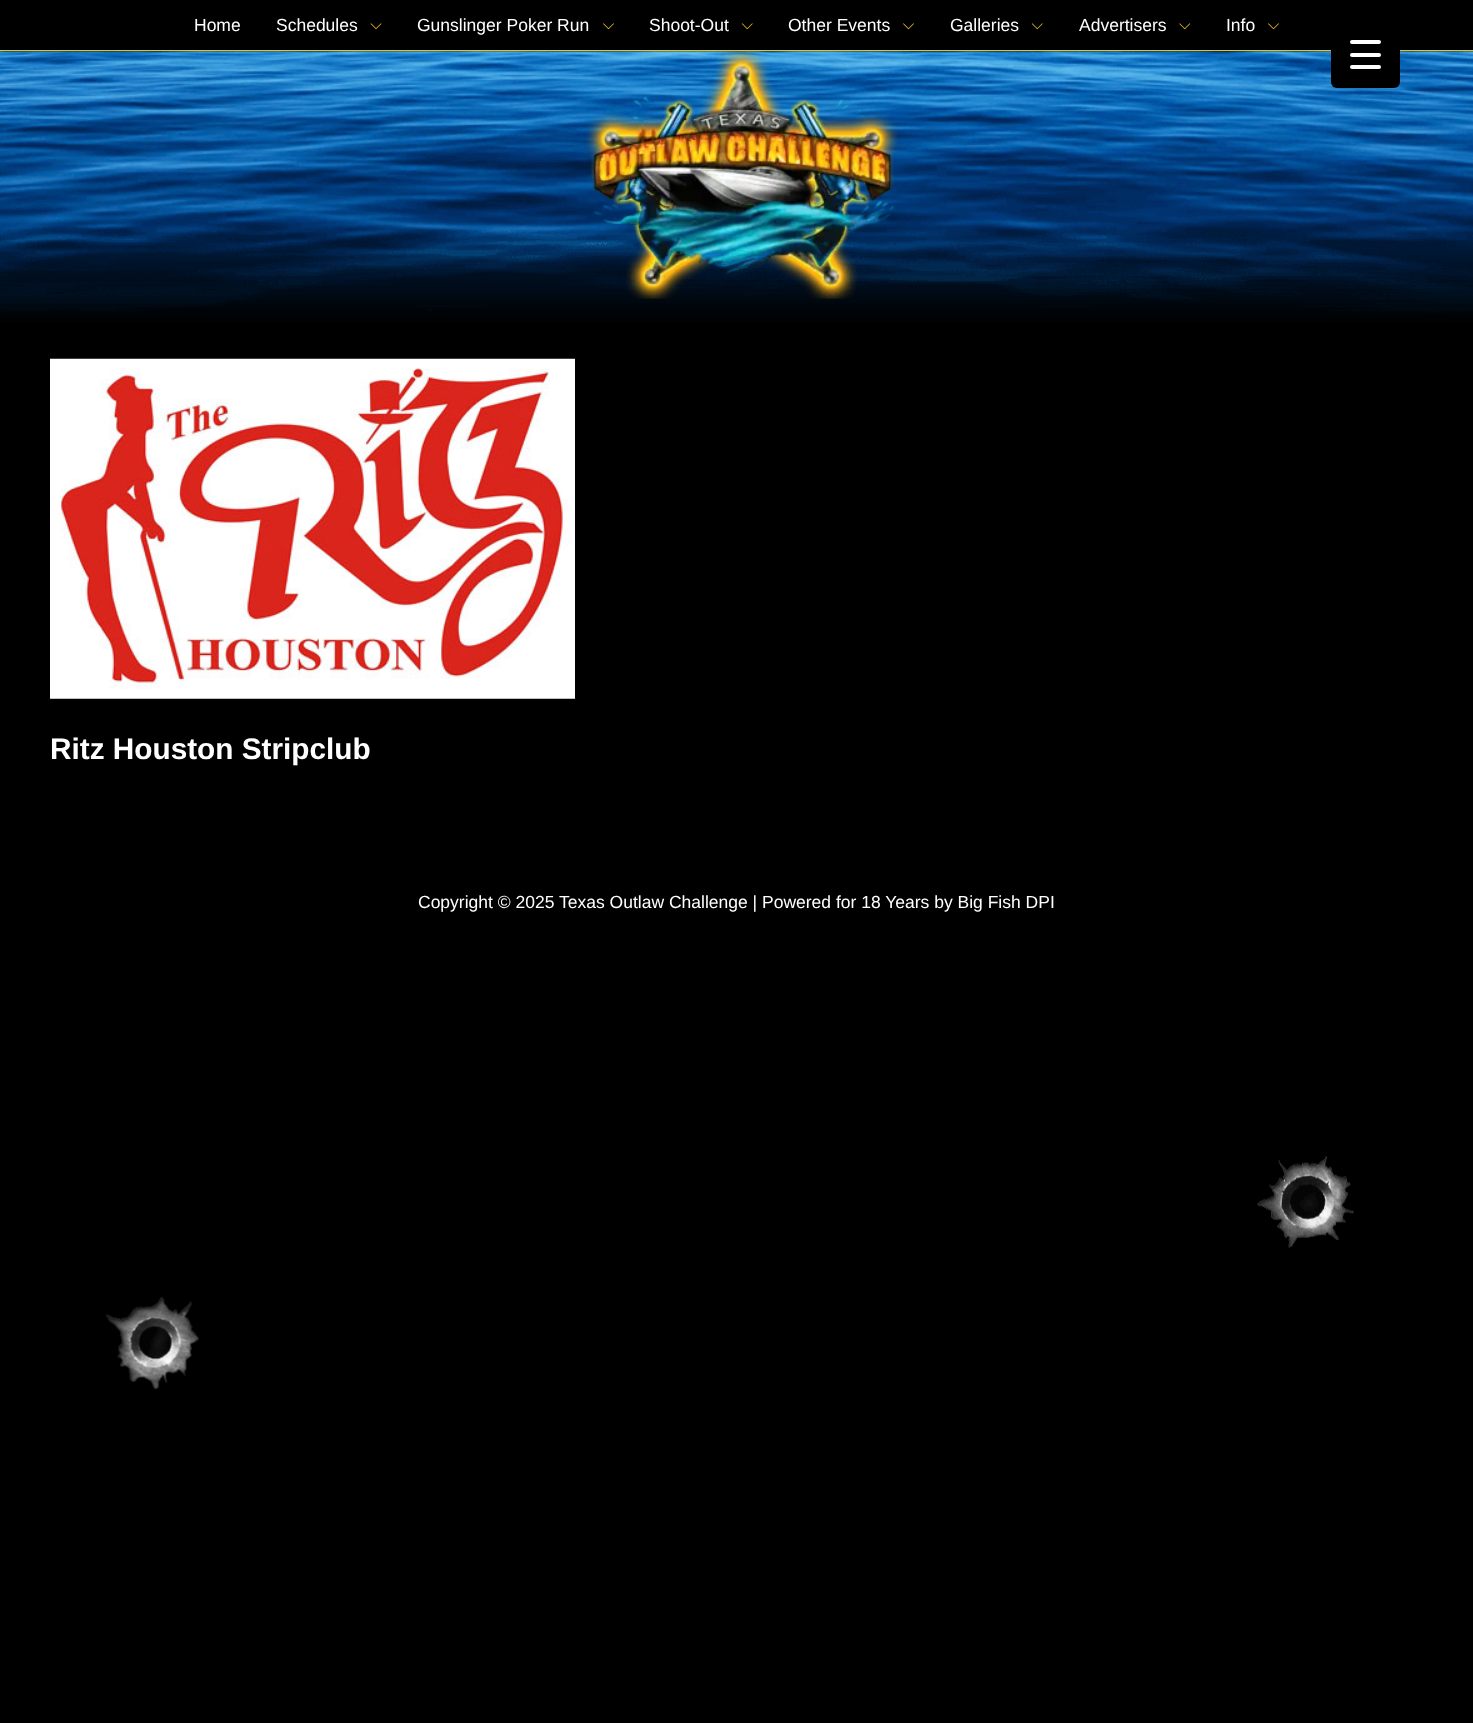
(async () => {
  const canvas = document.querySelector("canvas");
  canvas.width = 1473;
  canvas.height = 1723;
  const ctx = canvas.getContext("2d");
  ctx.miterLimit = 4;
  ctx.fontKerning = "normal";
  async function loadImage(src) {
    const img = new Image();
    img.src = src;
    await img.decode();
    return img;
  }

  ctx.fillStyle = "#000000";
  ctx.fillRect(0, 0, 1473, 1723);
  ctx.fillStyle = "#eac220";
  ctx.fillRect(0, 50, 1473, 1);
  ctx.drawImage(await loadImage("img/1.png"), 370, 23, 12, 7);
  ctx.drawImage(await loadImage("img/2.png"), 603, 23, 11, 7);
  ctx.drawImage(await loadImage("img/3.png"), 741, 23, 12, 7);
  ctx.drawImage(await loadImage("img/2.png"), 903, 23, 11, 7);
  ctx.drawImage(await loadImage("img/3.png"), 1031, 23, 12, 7);
  ctx.drawImage(await loadImage("img/4.png"), 1179, 23, 12, 7);
  ctx.drawImage(await loadImage("img/2.png"), 1268, 23, 11, 7);
  ctx.drawImage(await loadImage("img/5.png"), 0, 51, 1473, 272);
  ctx.drawImage(await loadImage("img/6.png"), 585, 51, 314, 248);
  ctx.drawImage(await loadImage("img/7.png"), 50, 358, 525, 341);
  ctx.fillStyle = "#000000";
  ctx.beginPath();
  ctx.roundRect(1331, 19, 69, 69, 6);
  ctx.fill();
  ctx.fillStyle = "#ffffff";
  ctx.beginPath();
  ctx.roundRect(1350, 53, 31, 4, 2);
  ctx.fill();
  ctx.beginPath();
  ctx.roundRect(1350, 40, 31, 4, 2);
  ctx.fill();
  ctx.beginPath();
  ctx.roundRect(1350, 65, 31, 4, 2);
  ctx.fill();
  ctx.drawImage(await loadImage("img/8.png"), 1257, 1156, 97, 92);
  ctx.drawImage(await loadImage("img/9.png"), 106, 1297, 93, 93);
  ctx.font = "17.5px Liberation Sans";
  for (const [text, x, y] of [
    ["Home", 194, 31],
    ["Schedules", 276, 31],
    ["Gunslinger Poker Run", 417, 31],
    ["Shoot-Out", 649, 31],
    ["Other Events", 788, 31],
    ["Galleries", 950, 31],
    ["Advertisers", 1079, 31],
    ["Info", 1226, 31],
  ]) {
    ctx.fillText(text, x, y);
  }
  ctx.font = "bold 29.75px Liberation Sans";
  ctx.fillText("Ritz Houston Stripclub", 50, 759);
  ctx.font = "17.5px Liberation Sans";
  ctx.fillText("Copyright © 2025 Texas Outlaw Challenge | Powered for 18 Years by Big Fish DPI", 418, 908);
})();
